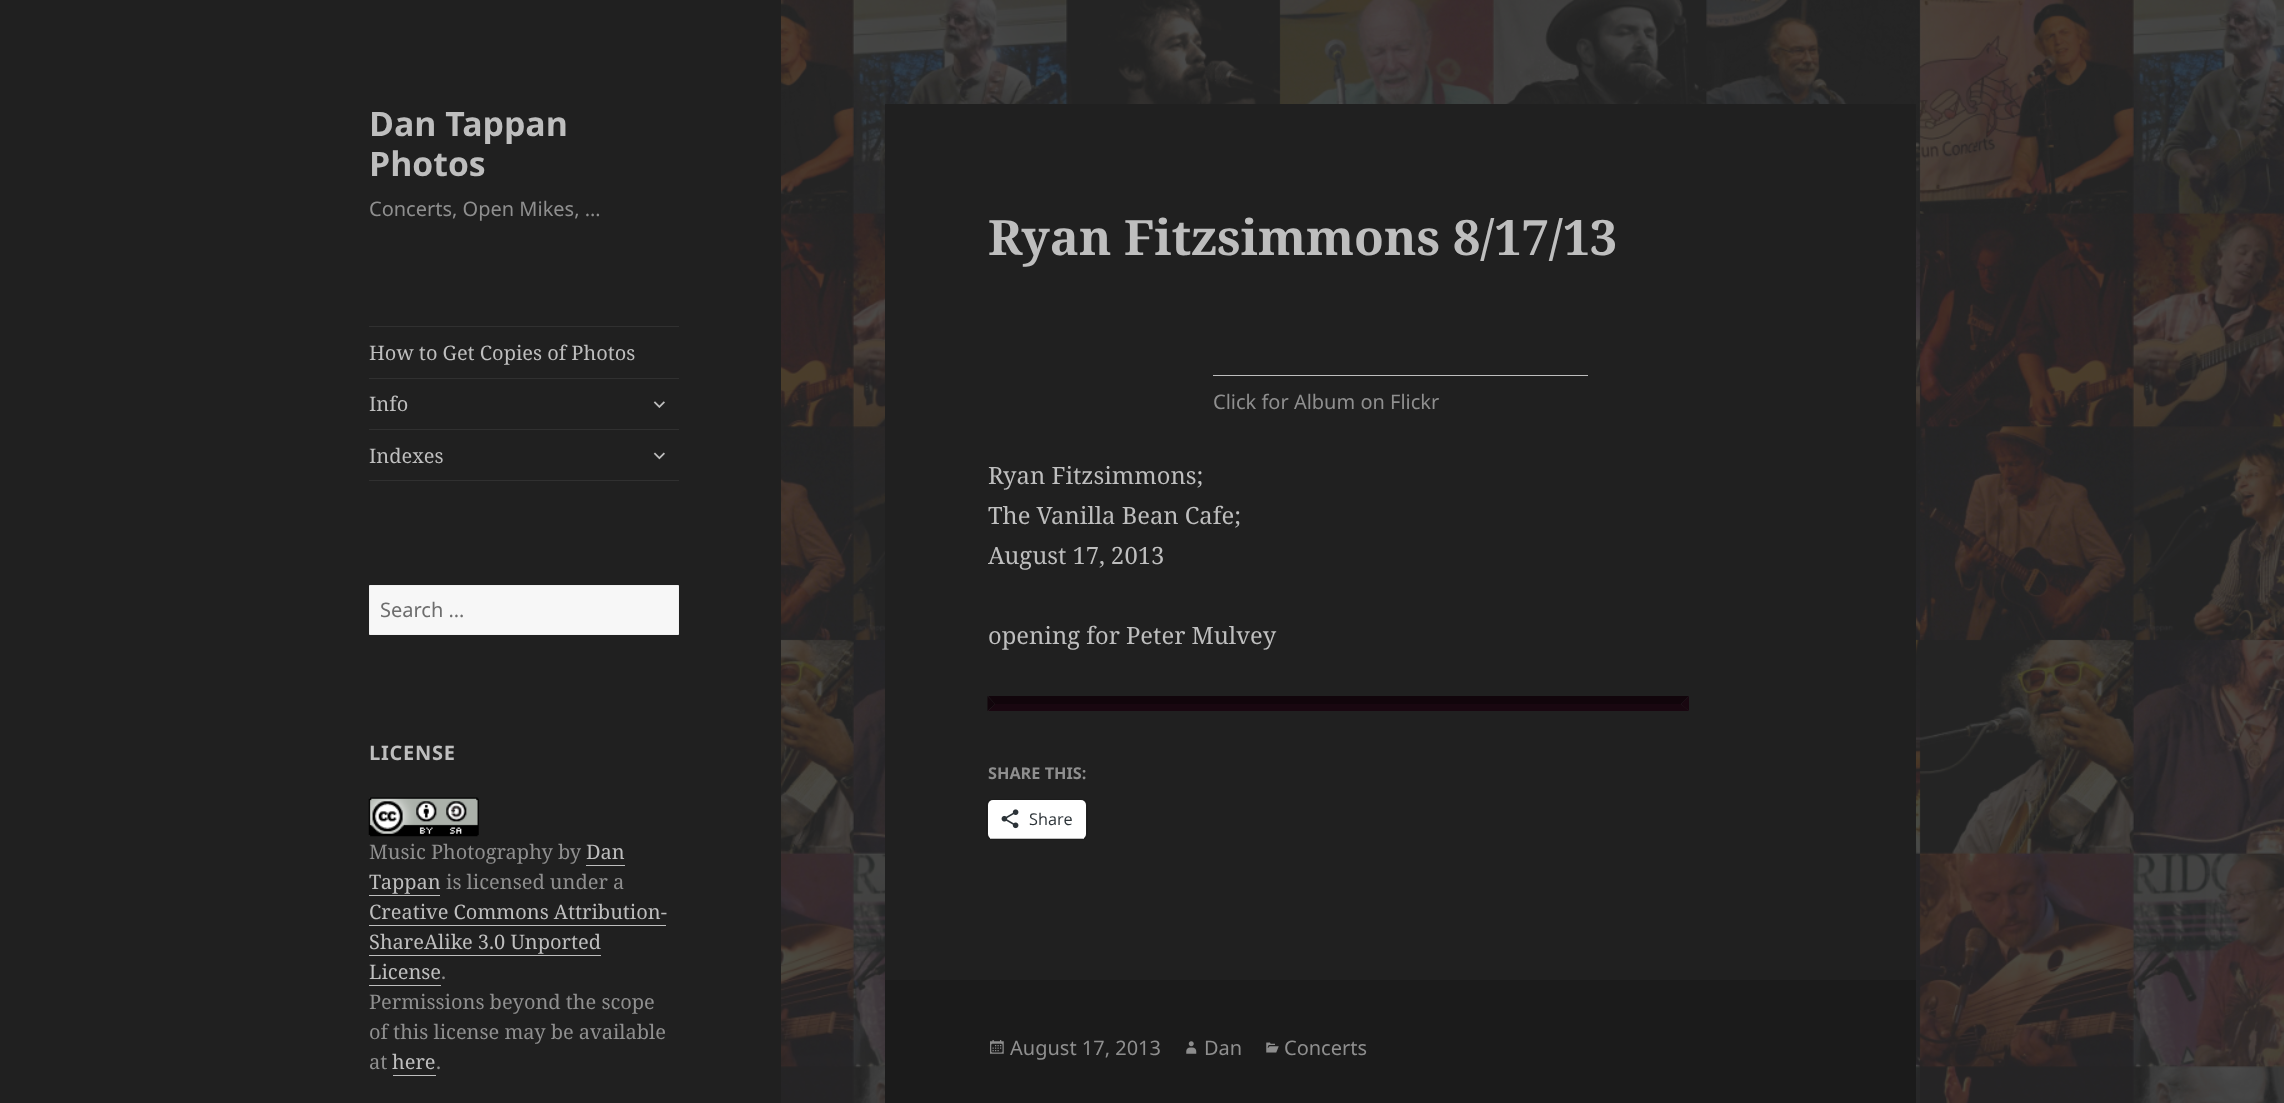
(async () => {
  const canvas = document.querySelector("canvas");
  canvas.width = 2284;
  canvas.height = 1103;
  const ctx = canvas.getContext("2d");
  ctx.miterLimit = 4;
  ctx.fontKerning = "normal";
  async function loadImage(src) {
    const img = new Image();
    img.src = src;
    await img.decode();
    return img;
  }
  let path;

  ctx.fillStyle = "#2b2b2b";
  ctx.fillRect(0, 0, 2284, 1103);
  ctx.drawImage(await loadImage("img/1.png"), 781, 0, 1503, 1103);
  for (const [x, y, w, h, color] of [
    [0, 0, 781, 1103, "#202020"],
    [369, 326, 310, 1, "#303030"],
    [369, 480, 310, 1, "#303030"],
    [369, 378, 310, 1, "#303030"],
  ]) {
    ctx.fillStyle = color;
    ctx.fillRect(x, y, w, h);
  }
  ctx.drawImage(await loadImage("img/2.png"), 653, 401, 12, 7);
  ctx.fillRect(369, 429, 310, 1);
  ctx.drawImage(await loadImage("img/3.png"), 653, 452, 12, 8);
  ctx.fillStyle = "#f7f7f7";
  ctx.beginPath();
  ctx.rect(369.5, 585.5, 309, 49);
  ctx.fill();
  ctx.strokeStyle = "#f1f1f1";
  ctx.stroke();
  ctx.drawImage(await loadImage("img/4.png"), 368, 797, 111, 40);
  for (const [x, y, w, h, color] of [
    [586, 865, 39, 1, "#bebebe"],
    [369, 895, 71, 1, "#bebebe"],
    [369, 925, 297, 1, "#bebebe"],
    [369, 955, 232, 1, "#bebebe"],
    [369, 985, 72, 1, "#bebebe"],
    [393, 1075, 43, 1, "#bebebe"],
    [885, 104, 1031, 876, "#202020"],
    [1213, 375, 375, 1, "#bebebe"],
    [988, 696, 701, 15, "#2e2e2e"],
  ]) {
    ctx.fillStyle = color;
    ctx.fillRect(x, y, w, h);
  }
  ctx.fillStyle = "#11050b";
  path = new Path2D("M988 696H1689L1681 704H995Z");
  ctx.fill(path);
  ctx.fillStyle = "#190710";
  path = new Path2D("M1689 696V711L1681 704Z");
  ctx.fill(path);
  path = new Path2D("M1689 711H988L995 704H1681Z");
  ctx.fill(path);
  ctx.fillStyle = "#11050b";
  path = new Path2D("M987.5 711V696L995 704Z");
  ctx.fill(path);
  ctx.beginPath();
  ctx.roundRect(986.5, 799.5, 101, 40, 5.5);
  ctx.strokeStyle = "#1c1c1c";
  ctx.stroke();
  ctx.fillStyle = "#ffffff";
  ctx.beginPath();
  ctx.roundRect(988, 800, 98, 39, 5);
  ctx.fill();
  ctx.fillStyle = "#bebebe";
  ctx.fillRect(990, 838, 94, 1);
  ctx.drawImage(await loadImage("img/5.png"), 1001, 809, 18, 20);
  ctx.fillStyle = "#1b1b1b";
  ctx.fillRect(885, 980, 1031, 123);
  ctx.drawImage(await loadImage("img/6.png"), 990, 1040, 14, 14);
  ctx.drawImage(await loadImage("img/7.png"), 1186, 1041, 11, 13);
  ctx.drawImage(await loadImage("img/8.png"), 1266, 1042, 13, 11);
  ctx.font = "bold 33.75px Noto Sans";
  ctx.fillStyle = "#bebebe";
  ctx.fillText("Dan Tappan", 369, 136);
  ctx.fillText("Photos", 369, 176);
  ctx.font = "20px Noto Sans";
  ctx.fillStyle = "#8f8f8f";
  ctx.fillText("Concerts, Open Mikes, …", 369, 216);
  ctx.font = "20px Noto Serif";
  ctx.fillStyle = "#bebebe";
  for (const [text, x, y] of [
    ["How to Get Copies of Photos", 369, 360],
    ["Info", 369, 411],
    ["Indexes", 369, 463],
  ]) {
    ctx.fillText(text, x, y);
  }
  ctx.font = "20px Noto Sans";
  ctx.fillStyle = "#6e6e6e";
  ctx.fillText("Search …", 380, 617);
  ctx.letterSpacing = "0.75px";
  ctx.font = "bold 20px Noto Sans";
  ctx.fillStyle = "#bebebe";
  ctx.fillText("LICENSE", 369, 760);
  ctx.letterSpacing = "0px";
  ctx.font = "20px Noto Serif";
  ctx.fillStyle = "#8f8f8f";
  ctx.fillText("Music Photography by", 369, 859);
  ctx.fillStyle = "#bebebe";
  ctx.fillText("Dan", 586, 859);
  ctx.fillText("Tappan", 369, 889);
  ctx.fillStyle = "#8f8f8f";
  ctx.fillText("is licensed under a", 446, 889);
  ctx.fillStyle = "#bebebe";
  for (const [text, x, y] of [
    ["Creative Commons Attribution-", 369, 919],
    ["ShareAlike 3.0 Unported", 369, 949],
    ["License", 369, 979],
  ]) {
    ctx.fillText(text, x, y);
  }
  ctx.fillStyle = "#8f8f8f";
  for (const [text, x, y] of [
    [".", 441, 979],
    ["Permissions beyond the scope", 369, 1009],
    ["of this license may be available", 369, 1039],
    ["at", 369, 1069],
  ]) {
    ctx.fillText(text, x, y);
  }
  ctx.fillStyle = "#bebebe";
  ctx.fillText("here", 392, 1069);
  ctx.fillStyle = "#8f8f8f";
  ctx.fillText(".", 436, 1069);
  ctx.font = "bold 48.75px Noto Serif";
  ctx.fillStyle = "#bebebe";
  ctx.fillText("Ryan Fitzsimmons 8/17/13", 988, 255);
  ctx.font = "20px Noto Sans";
  ctx.fillStyle = "#8f8f8f";
  ctx.fillText("Click for Album on Flickr", 1213, 409);
  ctx.font = "23.75px Noto Serif";
  ctx.fillStyle = "#bebebe";
  for (const [text, x, y] of [
    ["Ryan Fitzsimmons;", 988, 484],
    ["The Vanilla Bean Cafe;", 988, 524],
    ["August 17, 2013", 988, 564],
    ["opening for Peter Mulvey", 988, 644],
  ]) {
    ctx.fillText(text, x, y);
  }
  ctx.font = "bold 16.25px Noto Sans";
  ctx.fillStyle = "#8f8f8f";
  ctx.fillText("SHARE THIS:", 988, 779);
  ctx.font = "16.25px Open Sans";
  ctx.fillStyle = "#2c3338";
  ctx.fillText("Share", 1029, 825);
  ctx.font = "20px Noto Sans";
  ctx.fillStyle = "#8f8f8f";
  for (const [text, x, y] of [
    ["August 17, 2013", 1010, 1055],
    ["Dan", 1204, 1055],
    ["Concerts", 1284, 1055],
  ]) {
    ctx.fillText(text, x, y);
  }
})();
